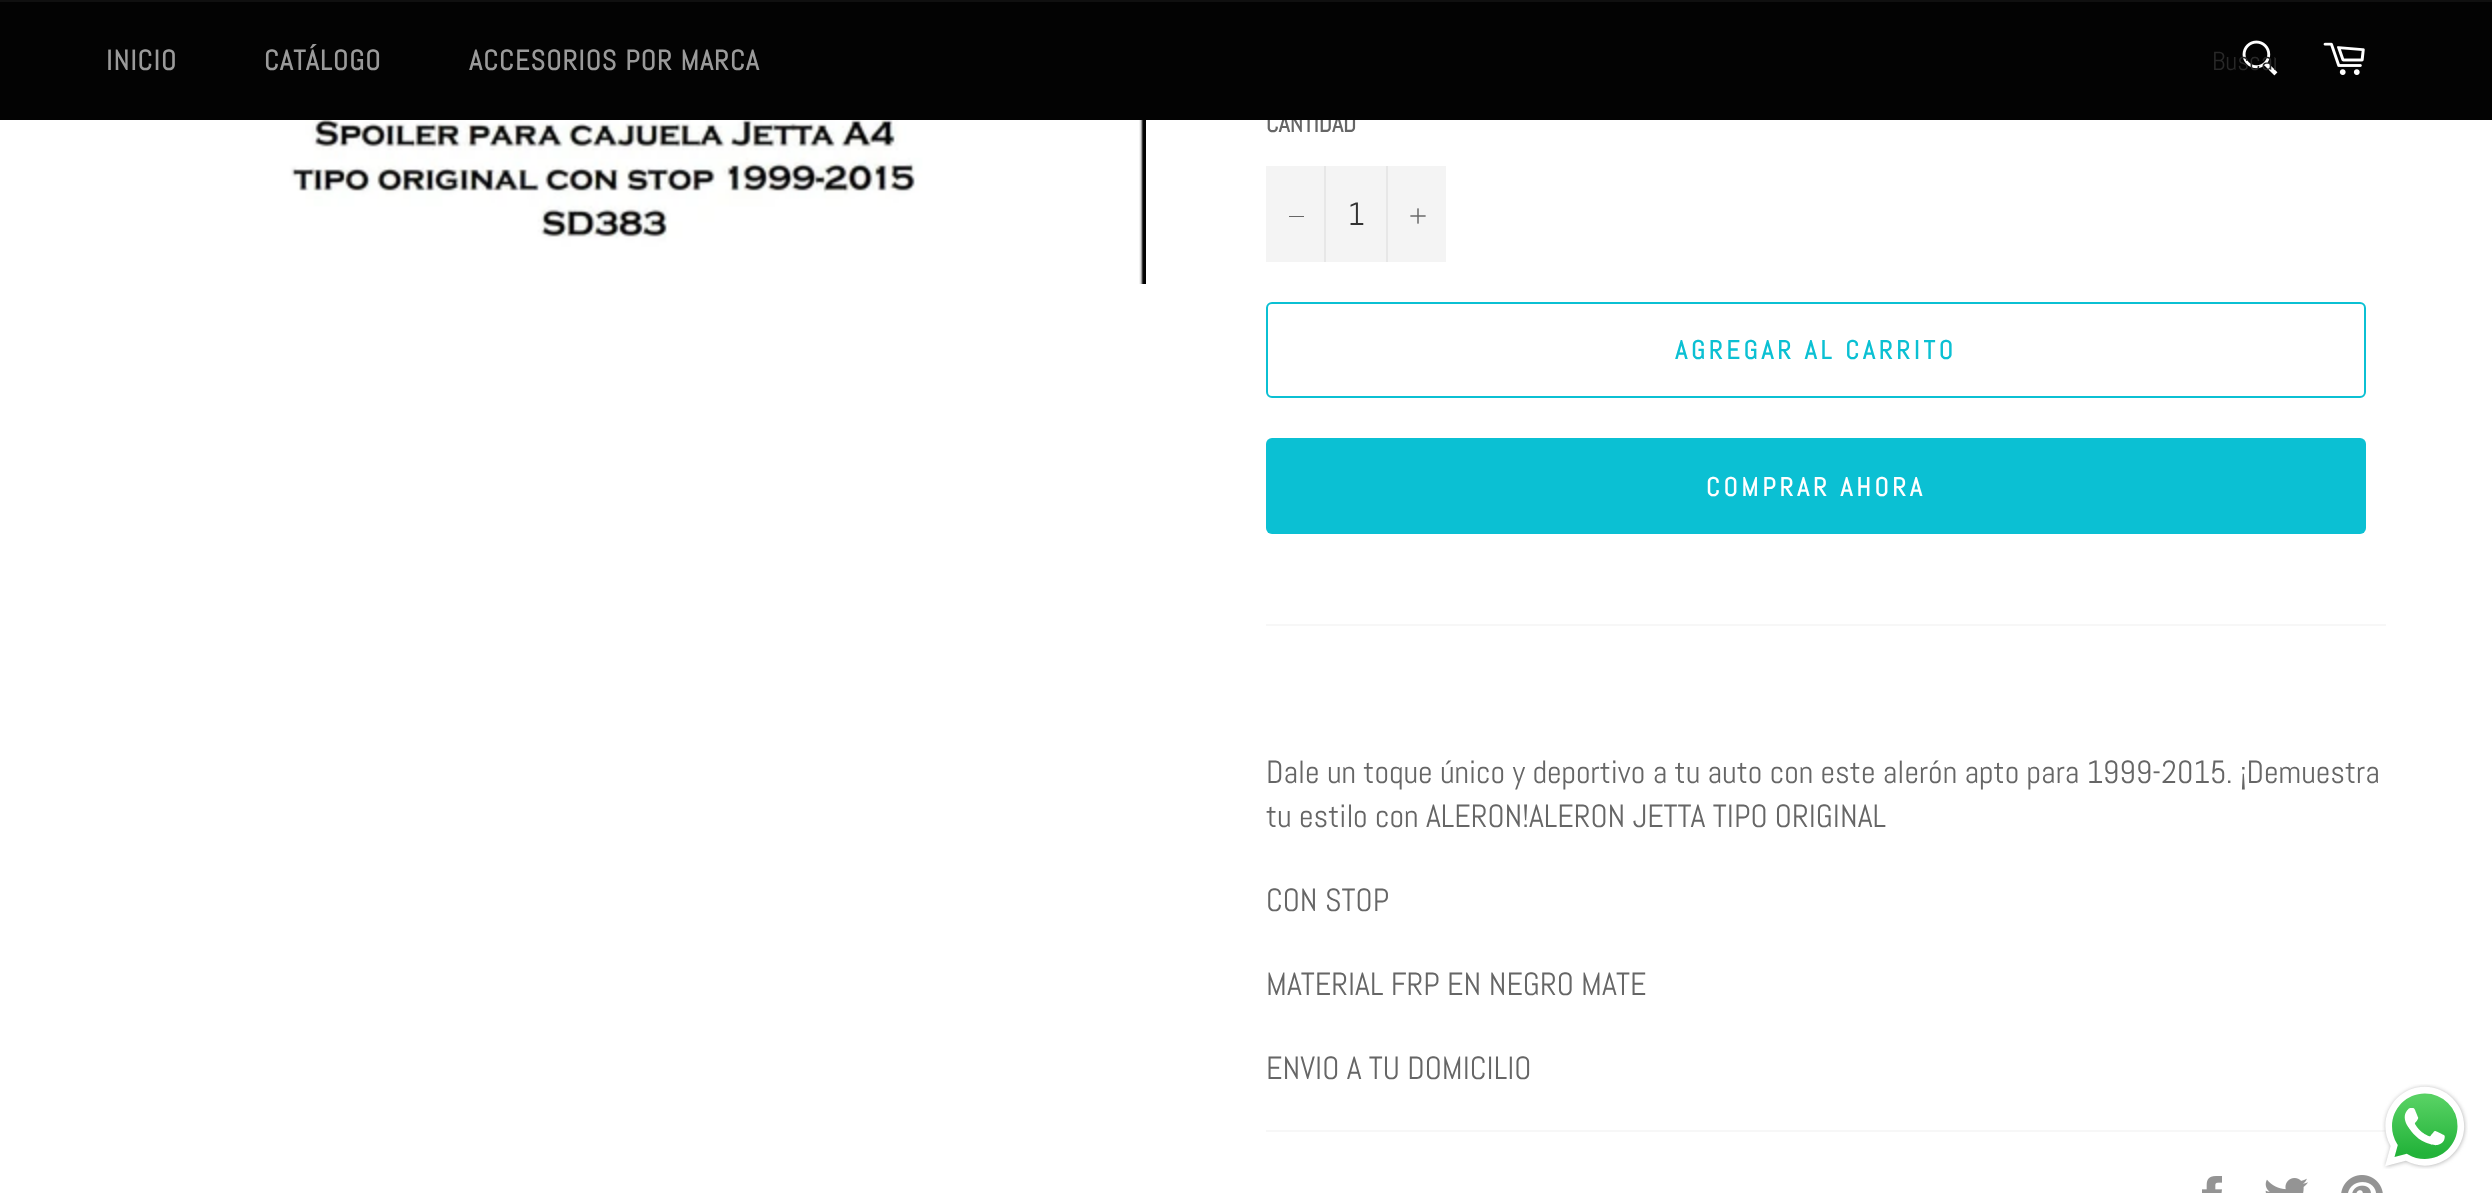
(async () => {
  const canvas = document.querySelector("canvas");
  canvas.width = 2492;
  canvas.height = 1193;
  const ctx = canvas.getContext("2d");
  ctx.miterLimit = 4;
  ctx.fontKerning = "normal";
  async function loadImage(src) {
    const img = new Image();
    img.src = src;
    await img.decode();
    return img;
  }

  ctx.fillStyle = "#ffffff";
  ctx.fillRect(0, 0, 2492, 1193);
  ctx.fillStyle = "#101010";
  ctx.fillRect(0, 0, 2492, 2);
  ctx.drawImage(await loadImage("img/3.png"), 233, 120, 913, 164);
  for (const [x, y, w, h, color] of [
    [1266, 166, 180, 96, "#f4f4f4"],
    [1324, 166, 2, 96, "#e7e7e7"],
    [1289, 216, 15, 1, "#666666"],
    [1386, 166, 2, 96, "#e7e7e7"],
  ]) {
    ctx.fillStyle = color;
    ctx.fillRect(x, y, w, h);
  }
  ctx.drawImage(await loadImage("img/4.png"), 1410, 208, 16, 16);
  ctx.beginPath();
  ctx.roundRect(1267, 303, 1098, 94, 5);
  ctx.strokeStyle = "#0bc0d3";
  ctx.lineWidth = 2;
  ctx.stroke();
  ctx.fillStyle = "#0bc0d3";
  ctx.beginPath();
  ctx.roundRect(1266, 438, 1100, 96, 6);
  ctx.fill();
  ctx.fillStyle = "#f7f7f7";
  ctx.fillRect(1266, 624, 1120, 2);
  ctx.fillRect(1266, 1130, 1120, 2);
  ctx.drawImage(await loadImage("img/5.png"), 2202, 1176, 20, 17);
  ctx.drawImage(await loadImage("img/6.png"), 2265, 1178, 43, 15);
  ctx.drawImage(await loadImage("img/7.png"), 2341, 1175, 42, 18);
  ctx.drawImage(await loadImage("img/8.png"), 2382, 1084, 86, 85);
  ctx.font = "bold 24px Abel";
  ctx.fillStyle = "#666666";
  ctx.fillText("CANTIDAD", 1266, 132);
  ctx.fillStyle = "#030303";
  ctx.fillRect(0, 2, 2492, 118);
  ctx.drawImage(await loadImage("img/1.png"), 2242, 40, 36, 36);
  ctx.save();
  ctx.beginPath();
  ctx.rect(2212, 44, 64, 34);
  ctx.clip();
  ctx.font = "26px Abel";
  ctx.fillStyle = "#282828";
  ctx.fillText("Buscar", 2212, 70);
  ctx.restore();
  ctx.drawImage(await loadImage("img/2.png"), 2323, 42, 42, 33);
  ctx.letterSpacing = "1.2px";
  ctx.font = "bold 28px Abel";
  ctx.fillStyle = "#9a9a9a";
  for (const [text, x, y] of [
    ["ACCESORIOS POR MARCA", 469, 70],
    ["CATÁLOGO", 264, 70],
    ["INICIO", 106, 70],
  ]) {
    ctx.fillText(text, x, y);
  }
  ctx.letterSpacing = "0px";
  ctx.font = "32px Abel";
  ctx.fillStyle = "#333333";
  ctx.fillText("1", 1348, 225);
  ctx.letterSpacing = "3.9px";
  ctx.font = "bold 26px Abel";
  ctx.fillStyle = "#0bc0d3";
  ctx.fillText("AGREGAR AL CARRITO", 1675, 359);
  ctx.fillStyle = "#ffffff";
  ctx.fillText("COMPRAR AHORA", 1706, 496);
  ctx.letterSpacing = "0px";
  ctx.font = "32px Abel";
  ctx.fillStyle = "#666666";
  for (const [text, x, y] of [
    ["Dale un toque único y deportivo a tu auto con este alerón apto para 1999-2015. ¡Demuestra", 1266, 783],
    ["tu estilo con ALERON!ALERON JETTA TIPO ORIGINAL", 1266, 827],
    ["CON STOP", 1266, 911],
    ["MATERIAL FRP EN NEGRO MATE", 1266, 995],
    ["ENVIO A TU DOMICILIO", 1266, 1079],
  ]) {
    ctx.fillText(text, x, y);
  }
})();
